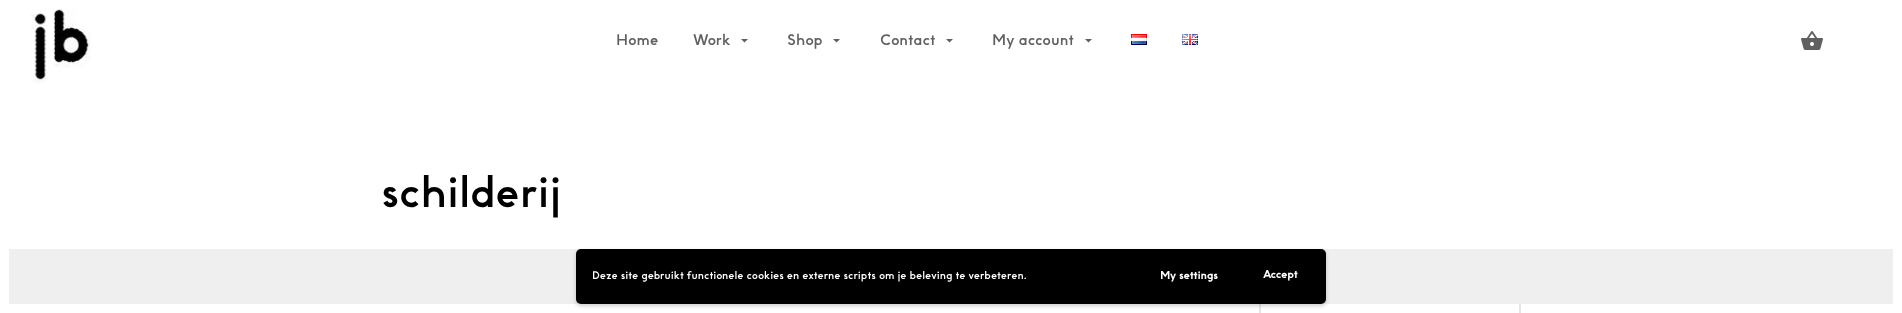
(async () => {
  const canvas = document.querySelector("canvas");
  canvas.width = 1902;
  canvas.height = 313;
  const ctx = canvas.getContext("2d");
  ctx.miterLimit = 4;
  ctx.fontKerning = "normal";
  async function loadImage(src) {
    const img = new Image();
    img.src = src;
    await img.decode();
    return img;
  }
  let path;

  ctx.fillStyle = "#ffffff";
  ctx.fillRect(0, 0, 1902, 313);
  ctx.drawImage(await loadImage("img/1.png"), 31, 9, 60, 74);
  ctx.fillStyle = "#606060";
  path = new Path2D("M741 39H748L744.5 42.5Z");
  ctx.fill(path);
  path = new Path2D("M833 39H840L836.5 42.5Z");
  ctx.fill(path);
  path = new Path2D("M946 39H953L949.5 42.5Z");
  ctx.fill(path);
  path = new Path2D("M1085 39H1092L1088.5 42.5Z");
  ctx.fill(path);
  ctx.drawImage(await loadImage("img/2.png"), 1131, 34, 16, 11);
  ctx.drawImage(await loadImage("img/3.png"), 1182, 34, 16, 11);
  ctx.drawImage(await loadImage("img/4.png"), 1801, 31, 22, 19);
  ctx.strokeStyle = "#e5e5e5";
  ctx.lineWidth = 2;
  ctx.strokeRect(1260, 272, 260, 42);
  ctx.fillStyle = "#efefef";
  ctx.fillRect(9, 249, 1884, 55);
  ctx.fillStyle = "rgba(0, 0, 0, 0.2)";
  ctx.filter = "blur(2px)";
  ctx.beginPath();
  ctx.roundRect(576, 251, 750, 55, 5);
  ctx.fill();
  ctx.filter = "none";
  ctx.fillStyle = "#000000";
  ctx.beginPath();
  ctx.roundRect(576, 249, 750, 55, 5);
  ctx.fill();
  ctx.font = "500 14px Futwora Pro";
  ctx.fillStyle = "#606060";
  for (const [text, x, y] of [
    ["Home", 616, 45],
    ["Work", 693, 45],
    ["Shop", 787, 45],
    ["Contact", 880, 45],
    ["My account", 992, 45],
  ]) {
    ctx.fillText(text, x, y);
  }
  ctx.font = "500 40px Futwora Pro";
  ctx.fillStyle = "#000000";
  ctx.fillText("schilderij", 381, 207);
  ctx.font = "500 10px Futwora Pro";
  ctx.fillStyle = "#ffffff";
  ctx.fillText("Deze site gebruikt functionele cookies en externe scripts om je beleving te verbeteren.", 592, 279);
  ctx.font = "bold 10px Futwora Pro";
  ctx.fillText("My settings", 1160, 279);
  ctx.fillText("Accept", 1263, 278);
})();
